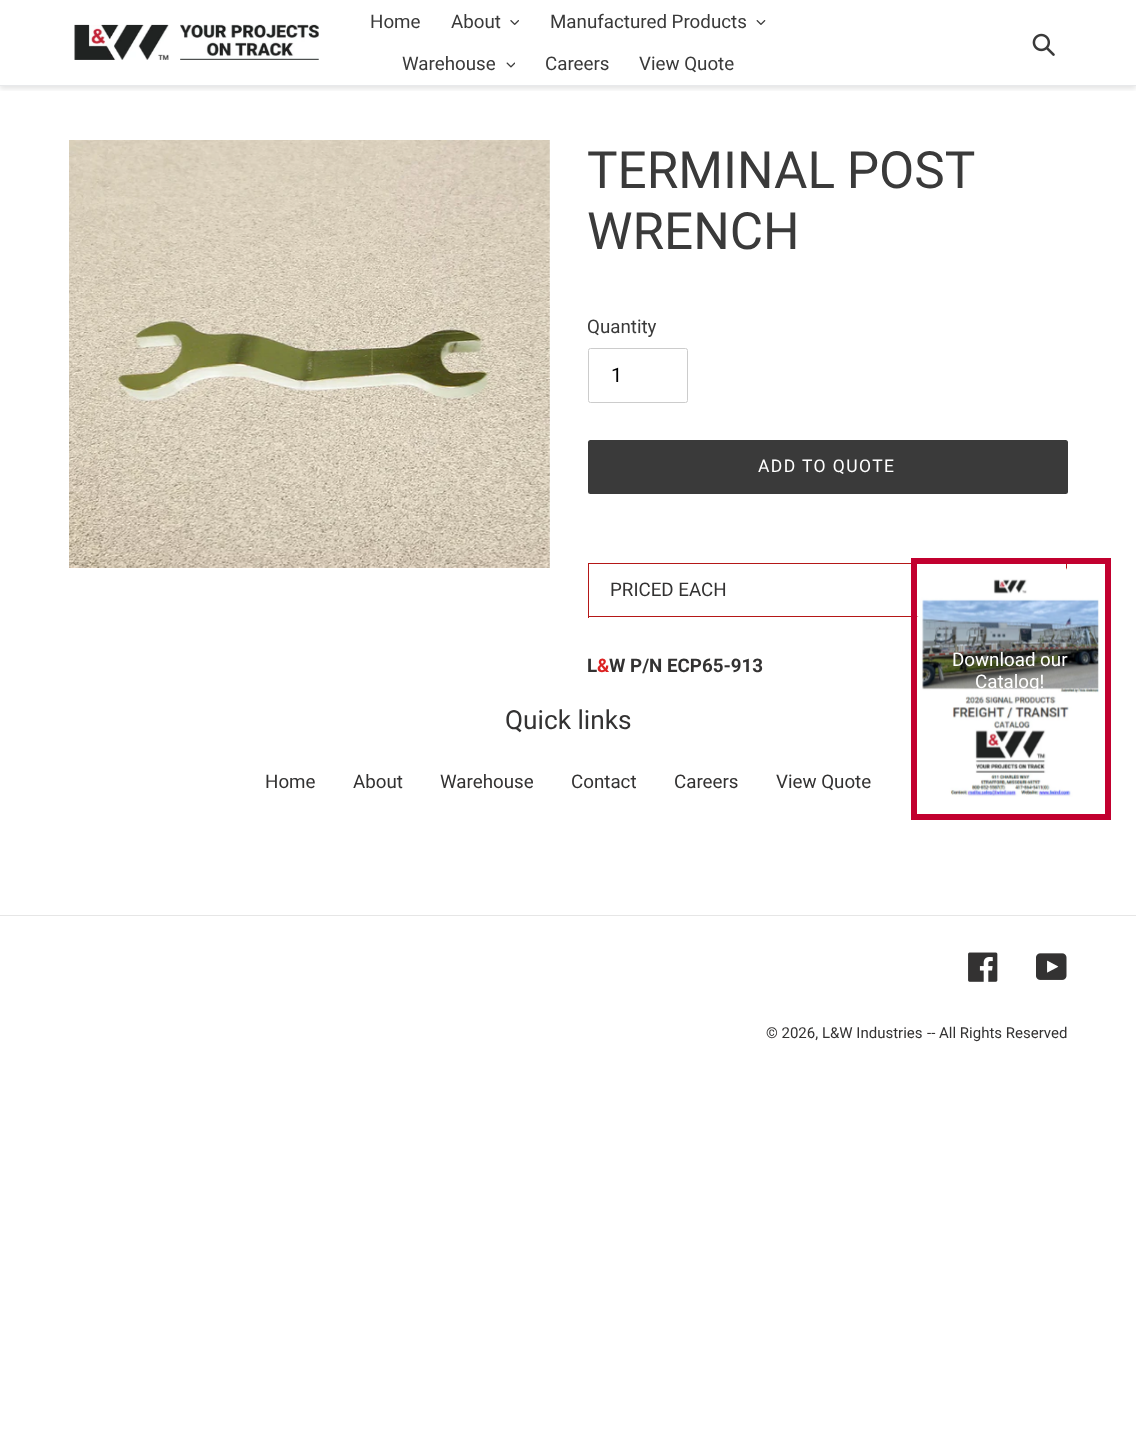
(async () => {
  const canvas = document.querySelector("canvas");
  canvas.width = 1136;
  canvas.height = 1442;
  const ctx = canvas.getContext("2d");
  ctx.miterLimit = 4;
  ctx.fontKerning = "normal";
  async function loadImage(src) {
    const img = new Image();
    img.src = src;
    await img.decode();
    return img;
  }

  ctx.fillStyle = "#ffffff";
  ctx.fillRect(0, 0, 1136, 1442);
  ctx.save();
  ctx.beginPath();
  ctx.rect(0, 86, 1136, 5);
  ctx.clip();
  ctx.fillStyle = "rgba(0, 0, 0, 0.1)";
  ctx.filter = "blur(2.5px)";
  ctx.beginPath();
  ctx.rect(0, 3, 1136, 86);
  ctx.fill();
  ctx.filter = "none";
  ctx.restore();
  ctx.fillStyle = "#e8e9eb";
  ctx.fillRect(0, 85, 1136, 1);
  ctx.drawImage(await loadImage("img/1.png"), 74, 24, 245, 36);
  ctx.drawImage(await loadImage("img/2.png"), 510, 20, 9, 5);
  ctx.drawImage(await loadImage("img/3.png"), 756, 20, 10, 5);
  ctx.drawImage(await loadImage("img/4.png"), 506, 62, 9, 6);
  ctx.drawImage(await loadImage("img/5.png"), 1032, 33, 23, 23);
  ctx.drawImage(await loadImage("img/6.png"), 69, 140, 481, 428);
  ctx.beginPath();
  ctx.roundRect(588.5, 348.5, 99, 54, 2);
  ctx.strokeStyle = "#cccccc";
  ctx.stroke();
  ctx.fillStyle = "#3a3a3a";
  ctx.beginPath();
  ctx.roundRect(588, 440, 480, 54, 2.5);
  ctx.fill();
  for (const [x, y, w, h, color] of [
    [588, 563, 323, 1, "#b51717"],
    [1066, 563, 1, 7, "#b51717"],
    [588, 616, 331, 1, "#b51717"],
    [588, 563, 1, 55, "#b51717"],
    [0, 915, 1136, 1, "#e6e6e6"],
  ]) {
    ctx.fillStyle = color;
    ctx.fillRect(x, y, w, h);
  }
  ctx.drawImage(await loadImage("img/7.png"), 968, 952, 30, 30);
  ctx.drawImage(await loadImage("img/8.png"), 1036, 953, 31, 27);
  ctx.drawImage(await loadImage("img/9.png"), 917, 568, 182, 229);
  ctx.strokeStyle = "#c2002f";
  ctx.lineWidth = 6;
  ctx.strokeRect(914, 561, 194, 256);
  ctx.font = "18.75px Roboto";
  ctx.fillStyle = "#3a3a3a";
  for (const [text, x, y] of [
    ["Home", 370, 28],
    ["About", 451, 28],
    ["Manufactured Products", 550, 28],
    ["Warehouse", 402, 70],
    ["Careers", 545, 70],
    ["View Quote", 639, 70],
  ]) {
    ctx.fillText(text, x, y);
  }
  ctx.wordSpacing = "-1px";
  ctx.font = "51.25px Roboto";
  ctx.fillText("TERMINAL POST", 587, 188);
  ctx.wordSpacing = "0px";
  ctx.fillText("WRENCH", 587, 249);
  ctx.font = "18.75px Roboto";
  ctx.fillText("Quantity", 587, 333);
  ctx.font = "20px Roboto";
  ctx.fillStyle = "#000000";
  ctx.fillText("1", 611, 382);
  ctx.letterSpacing = "1.4px";
  ctx.font = "17.5px Roboto";
  ctx.fillStyle = "#ffffff";
  ctx.fillText("ADD TO QUOTE", 758, 472);
  ctx.letterSpacing = "0px";
  ctx.font = "18.75px Roboto";
  ctx.fillStyle = "#333232";
  ctx.fillText("PRICED EACH", 610, 596);
  ctx.font = "bold 18.75px Roboto";
  ctx.fillText("L", 587, 672);
  ctx.fillStyle = "#dc2222";
  ctx.fillText("&", 597, 672);
  ctx.fillStyle = "#333232";
  ctx.fillText("W P/N ECP65-913", 609, 672);
  ctx.font = "26.25px Roboto";
  ctx.fillText("Quick links", 505, 729);
  ctx.font = "18.75px Roboto";
  for (const [text, x, y] of [
    ["Home", 265, 788],
    ["About", 353, 788],
    ["Warehouse", 440, 788],
    ["Contact", 571, 788],
    ["Careers", 674, 788],
    ["View Quote", 776, 788],
  ]) {
    ctx.fillText(text, x, y);
  }
  ctx.font = "15px Roboto";
  ctx.fillText("© 2026, L&W Industries", 766, 1038);
  ctx.fillText("-- All Rights Reserved", 927, 1038);
  ctx.font = "18.75px Roboto";
  ctx.fillStyle = "#ffffff";
  ctx.fillText("Download our", 952, 666);
  ctx.fillText("Catalog!", 975, 688);
})();
